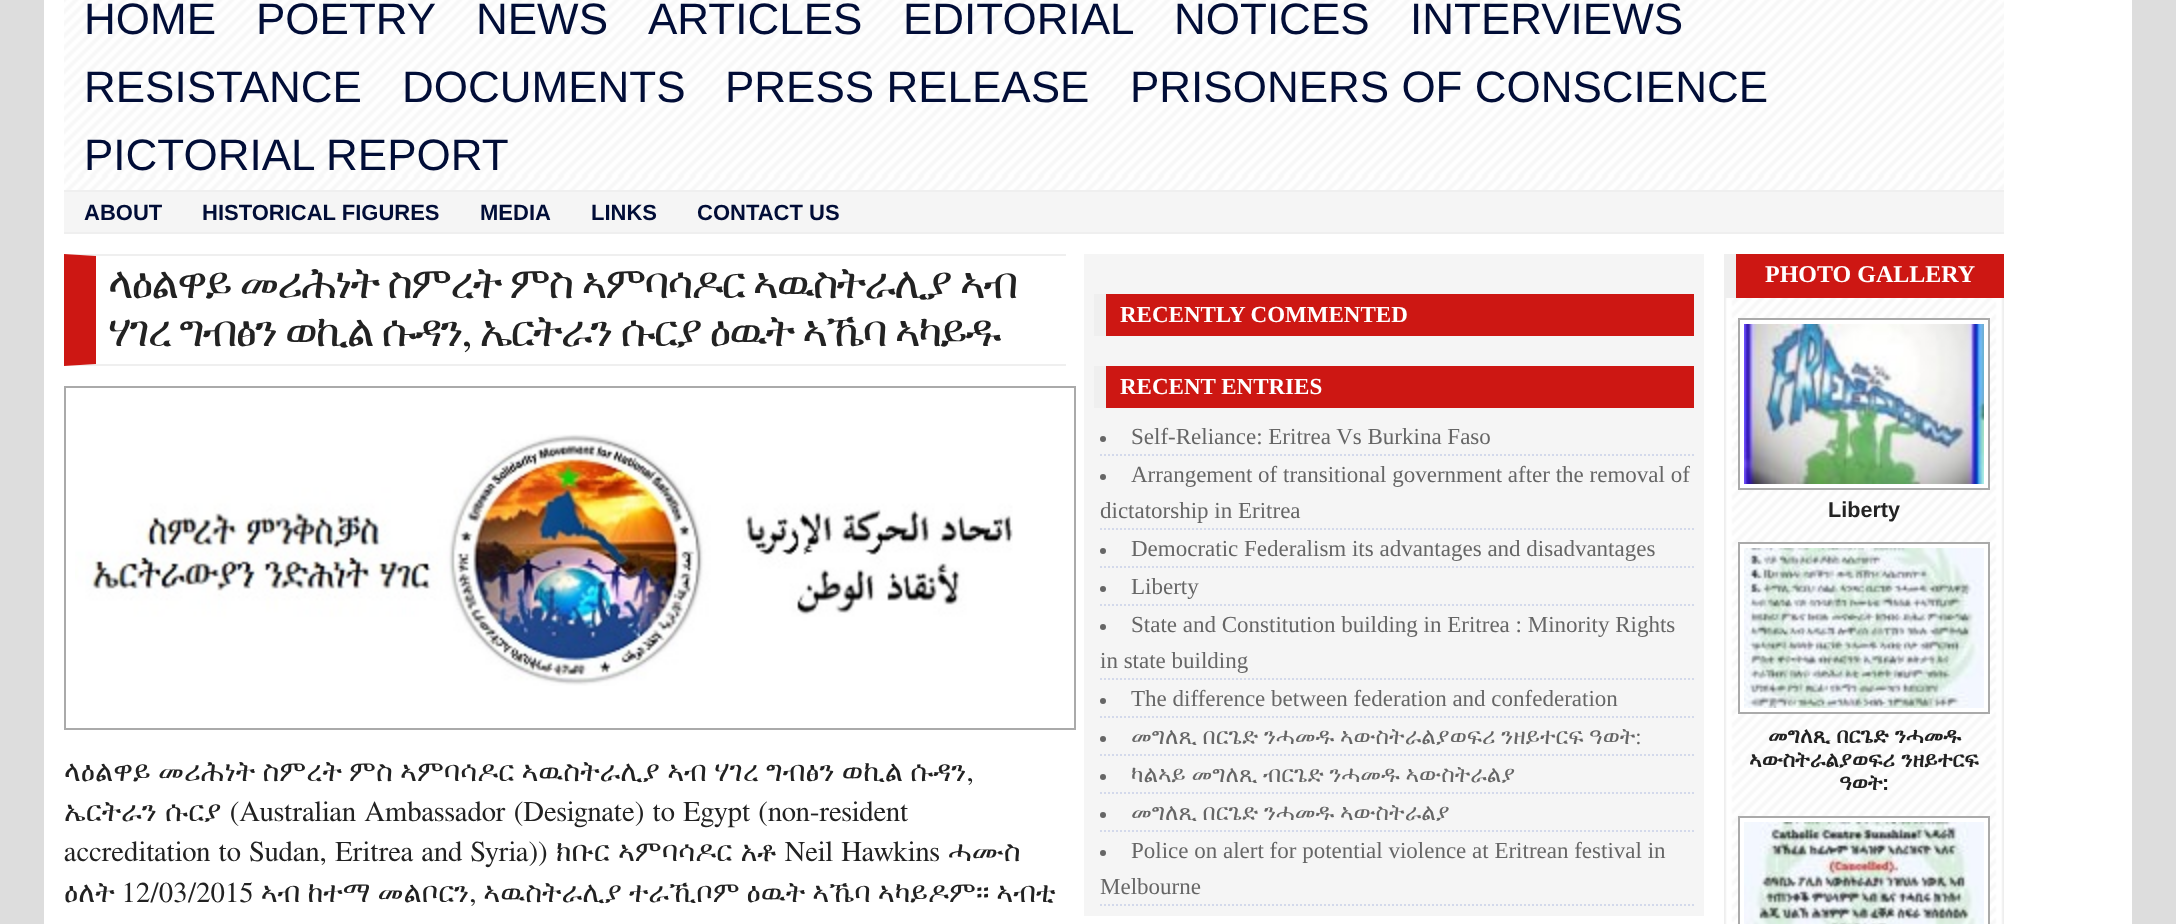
(async () => {
  const canvas = document.querySelector("canvas");
  canvas.width = 2176;
  canvas.height = 924;
  const ctx = canvas.getContext("2d");
  ctx.miterLimit = 4;
  ctx.fontKerning = "normal";
  async function loadImage(src) {
    const img = new Image();
    img.src = src;
    await img.decode();
    return img;
  }
  let path;

  ctx.fillStyle = "#dddddd";
  ctx.fillRect(0, 0, 2176, 924);
  ctx.fillStyle = "#ffffff";
  ctx.fillRect(44, 0, 2088, 924);
  ctx.drawImage(await loadImage("img/1.png"), 64, 0, 1940, 190);
  for (const [x, y, w, h, color] of [
    [64, 190, 1940, 2, "#efefef"],
    [64, 192, 1940, 40, "#f5f5f5"],
    [64, 232, 1940, 2, "#efefef"],
  ]) {
    ctx.fillStyle = color;
    ctx.fillRect(x, y, w, h);
  }
  path = new Path2D("M64 254H1066V256H96Z");
  ctx.fill(path);
  path = new Path2D("M1066 366H64L96 364H1066Z");
  ctx.fill(path);
  ctx.fillStyle = "#cd1713";
  path = new Path2D("M64 366V254L96 256V364Z");
  ctx.fill(path);
  ctx.strokeStyle = "#aaaaaa";
  ctx.lineWidth = 2;
  ctx.strokeRect(65, 387, 1010, 342);
  ctx.drawImage(await loadImage("img/2.png"), 75, 434, 938, 252);
  for (const [x, y, w, h, color] of [
    [1084, 254, 620, 662, "#f5f5f5"],
    [1106, 294, 588, 42, "#cd1713"],
    [1094, 294, 12, 42, "#efefef"],
    [1106, 366, 588, 42, "#cd1713"],
    [1094, 366, 12, 42, "#efefef"],
  ]) {
    ctx.fillStyle = color;
    ctx.fillRect(x, y, w, h);
  }
  path = new Path2D("M1100 455H1694");
  ctx.strokeStyle = "#d3d9eb";
  ctx.setLineDash([2, 2]);
  ctx.stroke(path);
  ctx.fillStyle = "#666666";
  ctx.beginPath();
  ctx.arc(1103, 439, 3, 0, Math.PI * 2);
  ctx.fill();
  path = new Path2D("M1100 529H1694");
  ctx.stroke(path);
  ctx.beginPath();
  ctx.arc(1103, 477, 3, 0, Math.PI * 2);
  ctx.fill();
  path = new Path2D("M1100 567H1694");
  ctx.stroke(path);
  ctx.beginPath();
  ctx.arc(1103, 551, 3, 0, Math.PI * 2);
  ctx.fill();
  path = new Path2D("M1100 605H1694");
  ctx.stroke(path);
  ctx.beginPath();
  ctx.arc(1103, 589, 3, 0, Math.PI * 2);
  ctx.fill();
  path = new Path2D("M1100 679H1694");
  ctx.stroke(path);
  ctx.beginPath();
  ctx.arc(1103, 627, 3, 0, Math.PI * 2);
  ctx.fill();
  path = new Path2D("M1100 717H1694");
  ctx.stroke(path);
  ctx.beginPath();
  ctx.arc(1103, 701, 3, 0, Math.PI * 2);
  ctx.fill();
  path = new Path2D("M1100 755H1694");
  ctx.stroke(path);
  ctx.beginPath();
  ctx.arc(1103, 739, 3, 0, Math.PI * 2);
  ctx.fill();
  path = new Path2D("M1100 793H1694");
  ctx.stroke(path);
  ctx.beginPath();
  ctx.arc(1103, 777, 3, 0, Math.PI * 2);
  ctx.fill();
  path = new Path2D("M1100 831H1694");
  ctx.stroke(path);
  ctx.beginPath();
  ctx.arc(1103, 815, 3, 0, Math.PI * 2);
  ctx.fill();
  path = new Path2D("M1100 905H1694");
  ctx.stroke(path);
  ctx.beginPath();
  ctx.arc(1103, 853, 3, 0, Math.PI * 2);
  ctx.fill();
  ctx.drawImage(await loadImage("img/3.png"), 1724, 298, 280, 626);
  ctx.fillStyle = "#cd1713";
  ctx.fillRect(1736, 254, 268, 44);
  ctx.fillStyle = "#efefef";
  ctx.fillRect(1724, 254, 12, 44);
  ctx.fillStyle = "#ffffff";
  ctx.beginPath();
  ctx.rect(1739, 319, 250, 170);
  ctx.fill();
  ctx.strokeStyle = "#aaaaaa";
  ctx.setLineDash([]);
  ctx.stroke();
  ctx.drawImage(await loadImage("img/4.png"), 1744, 324, 240, 160);
  ctx.beginPath();
  ctx.rect(1739, 543, 250, 170);
  ctx.fill();
  ctx.stroke();
  ctx.drawImage(await loadImage("img/5.png"), 1744, 548, 240, 160);
  ctx.beginPath();
  ctx.rect(1739, 817, 250, 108);
  ctx.fill();
  ctx.stroke();
  ctx.drawImage(await loadImage("img/6.png"), 1744, 822, 240, 102);
  ctx.font = "44px Liberation Sans";
  ctx.fillStyle = "#010d37";
  for (const [text, x, y] of [
    ["HOME", 84, 34],
    ["POETRY", 256, 34],
    ["NEWS", 476, 34],
    ["ARTICLES", 648, 34],
    ["EDITORIAL", 903, 34],
    ["NOTICES", 1174, 34],
    ["INTERVIEWS", 1410, 34],
    ["RESISTANCE", 84, 102],
    ["DOCUMENTS", 402, 102],
    ["PRESS RELEASE", 725, 102],
    ["PRISONERS OF CONSCIENCE", 1130, 102],
    ["PICTORIAL REPORT", 84, 170],
  ]) {
    ctx.fillText(text, x, y);
  }
  ctx.font = "bold 22px Liberation Sans";
  for (const [text, x, y] of [
    ["ABOUT", 84, 220],
    ["HISTORICAL FIGURES", 202, 220],
    ["MEDIA", 480, 220],
    ["LINKS", 591, 220],
    ["CONTACT US", 697, 220],
  ]) {
    ctx.fillText(text, x, y);
  }
  ctx.letterSpacing = "-2px";
  ctx.font = "44px FreeSerif";
  ctx.fillStyle = "#222222";
  ctx.fillText("ላዕልዋይ መሪሕነት ስምረት ምስ ኣምባሳዶር ኣዉስትራሊያ ኣብ", 108, 298);
  ctx.fillText("ሃገረ ግብፅን ወኪል ሱዳን, ኤርትራን ሱርያ ዕዉት ኣኼባ ኣካይዱ", 108, 346);
  ctx.letterSpacing = "0px";
  ctx.font = "28.8px FreeSerif";
  ctx.fillText("ላዕልዋይ መሪሕነት ስምረት ምስ ኣምባሳዶር ኣዉስትራሊያ ኣብ ሃገረ ግብፅን ወኪል ሱዳን,", 64, 781);
  ctx.wordSpacing = "1px";
  ctx.fillText("ኤርትራን ሱርያ (Australian Ambassador (Designate) to Egypt (non-resident", 64, 821);
  ctx.wordSpacing = "1.1px";
  ctx.fillText("accreditation to Sudan, Eritrea and Syria)) ክቡር ኣምባሳዶር አቶ Neil Hawkins ሓሙስ", 64, 861);
  ctx.wordSpacing = "-0.25px";
  ctx.fillText("ዕለት 12/03/2015 ኣብ ከተማ መልቦርን, ኣዉስትራሊያ ተራኺቦም ዕዉት ኣኼባ ኣካይዶም። ኣብቲ", 64, 902);
  ctx.wordSpacing = "0px";
  ctx.font = "bold 23px Liberation Serif";
  ctx.fillStyle = "#ffffff";
  ctx.fillText("RECENTLY COMMENTED", 1120, 322);
  ctx.fillText("RECENT ENTRIES", 1120, 394);
  ctx.font = "23px Liberation Serif";
  ctx.fillStyle = "#666666";
  for (const [text, x, y] of [
    ["Self-Reliance: Eritrea Vs Burkina Faso", 1131, 444],
    ["Arrangement of transitional government after the removal of", 1131, 482],
    ["dictatorship in Eritrea", 1100, 518],
    ["Democratic Federalism its advantages and disadvantages", 1131, 556],
    ["Liberty", 1131, 594],
    ["State and Constitution building in Eritrea : Minority Rights", 1131, 632],
    ["in state building", 1100, 668],
    ["The difference between federation and confederation", 1131, 706],
  ]) {
    ctx.fillText(text, x, y);
  }
  ctx.font = "23px FreeSerif";
  for (const [text, x, y] of [
    ["መግለጺ በርጌድ ንሓመዱ ኣውስትራልያወፍሪ ንዘይተርፍ ዓወት:", 1131, 744],
    ["ካልኣይ መግለጺ ብርጌድ ንሓመዱ ኣውስትራልያ", 1131, 782],
    ["መግለጺ በርጌድ ንሓመዱ ኣውስትራልያ", 1131, 820],
  ]) {
    ctx.fillText(text, x, y);
  }
  ctx.font = "23px Liberation Serif";
  ctx.fillText("Police on alert for potential violence at Eritrean festival in", 1131, 858);
  ctx.fillText("Melbourne", 1100, 894);
  ctx.font = "bold 24px Liberation Serif";
  ctx.fillStyle = "#ffffff";
  ctx.fillText("PHOTO GALLERY", 1765, 282);
  ctx.font = "bold 21.6px Liberation Sans";
  ctx.fillStyle = "#222222";
  ctx.fillText("Liberty", 1828, 517);
  ctx.wordSpacing = "1px";
  ctx.font = "bold 21.6px FreeSerif";
  ctx.fillText("መግለጺ በርጌድ ንሓመዱ", 1768, 743);
  ctx.fillText("ኣውስትራልያወፍሪ ንዘይተርፍ", 1749, 767);
  ctx.wordSpacing = "0px";
  ctx.fillText("ዓወት", 1839, 790);
  ctx.font = "bold 21.6px Liberation Sans";
  ctx.fillText(":", 1882, 790);
})();
